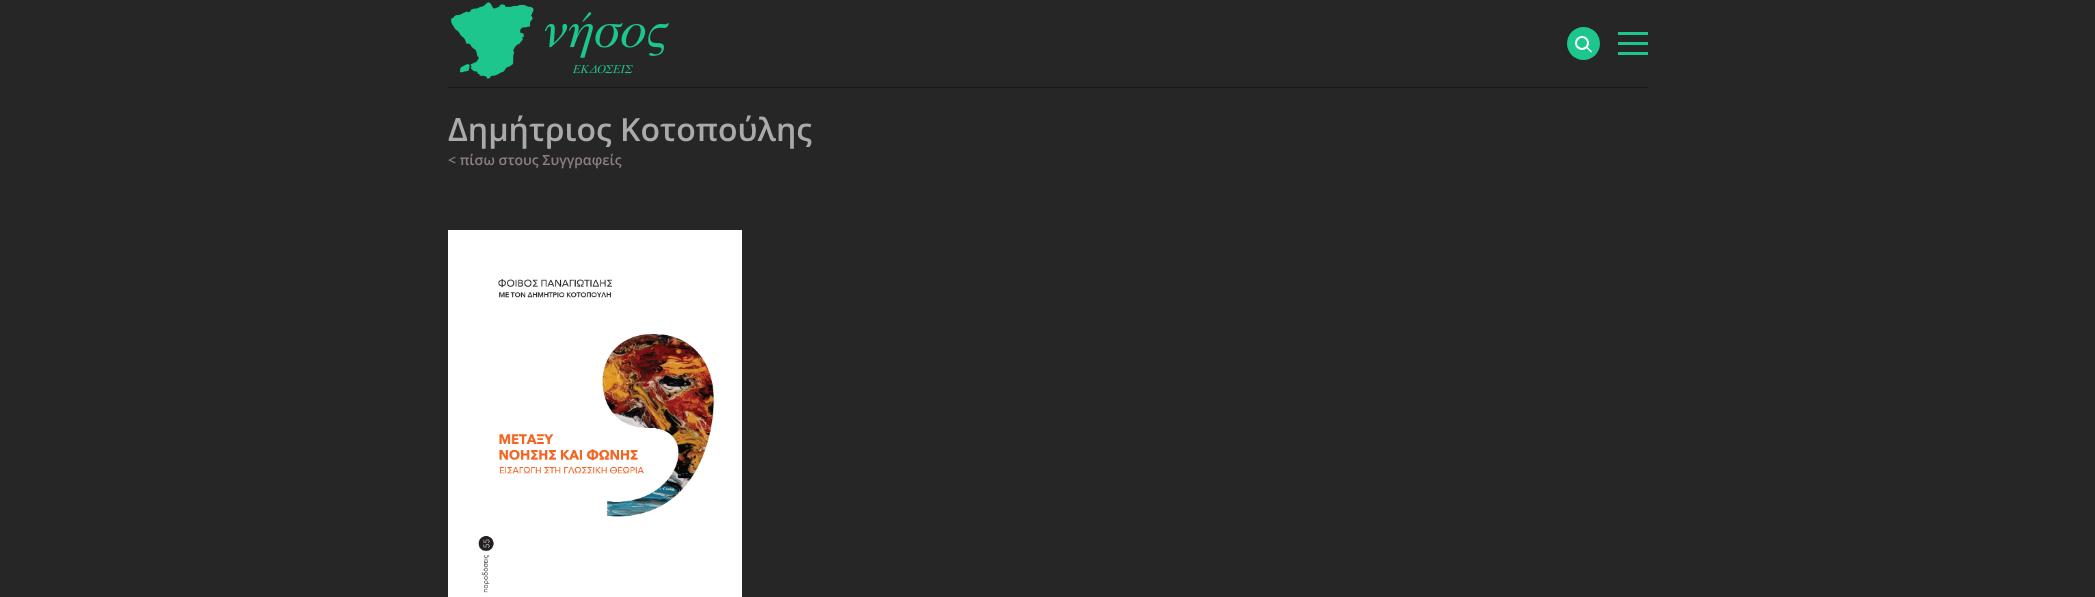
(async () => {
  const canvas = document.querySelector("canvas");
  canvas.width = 2095;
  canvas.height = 597;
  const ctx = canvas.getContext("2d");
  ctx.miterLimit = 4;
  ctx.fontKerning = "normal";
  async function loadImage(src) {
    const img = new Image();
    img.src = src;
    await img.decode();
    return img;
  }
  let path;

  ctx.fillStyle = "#262626";
  ctx.fillRect(0, 0, 2095, 597);
  ctx.fillStyle = "#1a1a1a";
  ctx.fillRect(448, 87, 1200, 1);
  ctx.drawImage(await loadImage("img/1.png"), 451, 2, 218, 77);
  ctx.fillStyle = "#1cc68d";
  ctx.beginPath();
  ctx.arc(1583.5, 43.5, 16.5, 0, Math.PI * 2);
  ctx.fill();
  ctx.fillStyle = "#ffffff";
  path = new Path2D("M1587 46.5L1592 51.5L1591 52.5L1586 47.5Z");
  ctx.fill(path);
  ctx.beginPath();
  ctx.arc(1582, 43, 6, 0, Math.PI * 2);
  ctx.strokeStyle = "#ffffff";
  ctx.lineWidth = 2;
  ctx.stroke();
  for (const [x, y, w, h, color] of [
    [1618, 52, 30, 3, "#1cc68d"],
    [1618, 42, 30, 3, "#1cc68d"],
    [1618, 32, 30, 3, "#1cc68d"],
  ]) {
    ctx.fillStyle = color;
    ctx.fillRect(x, y, w, h);
  }
  ctx.drawImage(await loadImage("img/2.png"), 448, 230, 294, 367);
  ctx.font = "600 32px Open Sans";
  ctx.fillStyle = "#aaaaaa";
  ctx.fillText("Δημήτριος Κοτοπούλης", 448, 141);
  ctx.font = "600 14px Open Sans";
  ctx.fillStyle = "#8c7f7e";
  ctx.fillText("< πίσω στους Συγγραφείς", 448, 165);
})();
